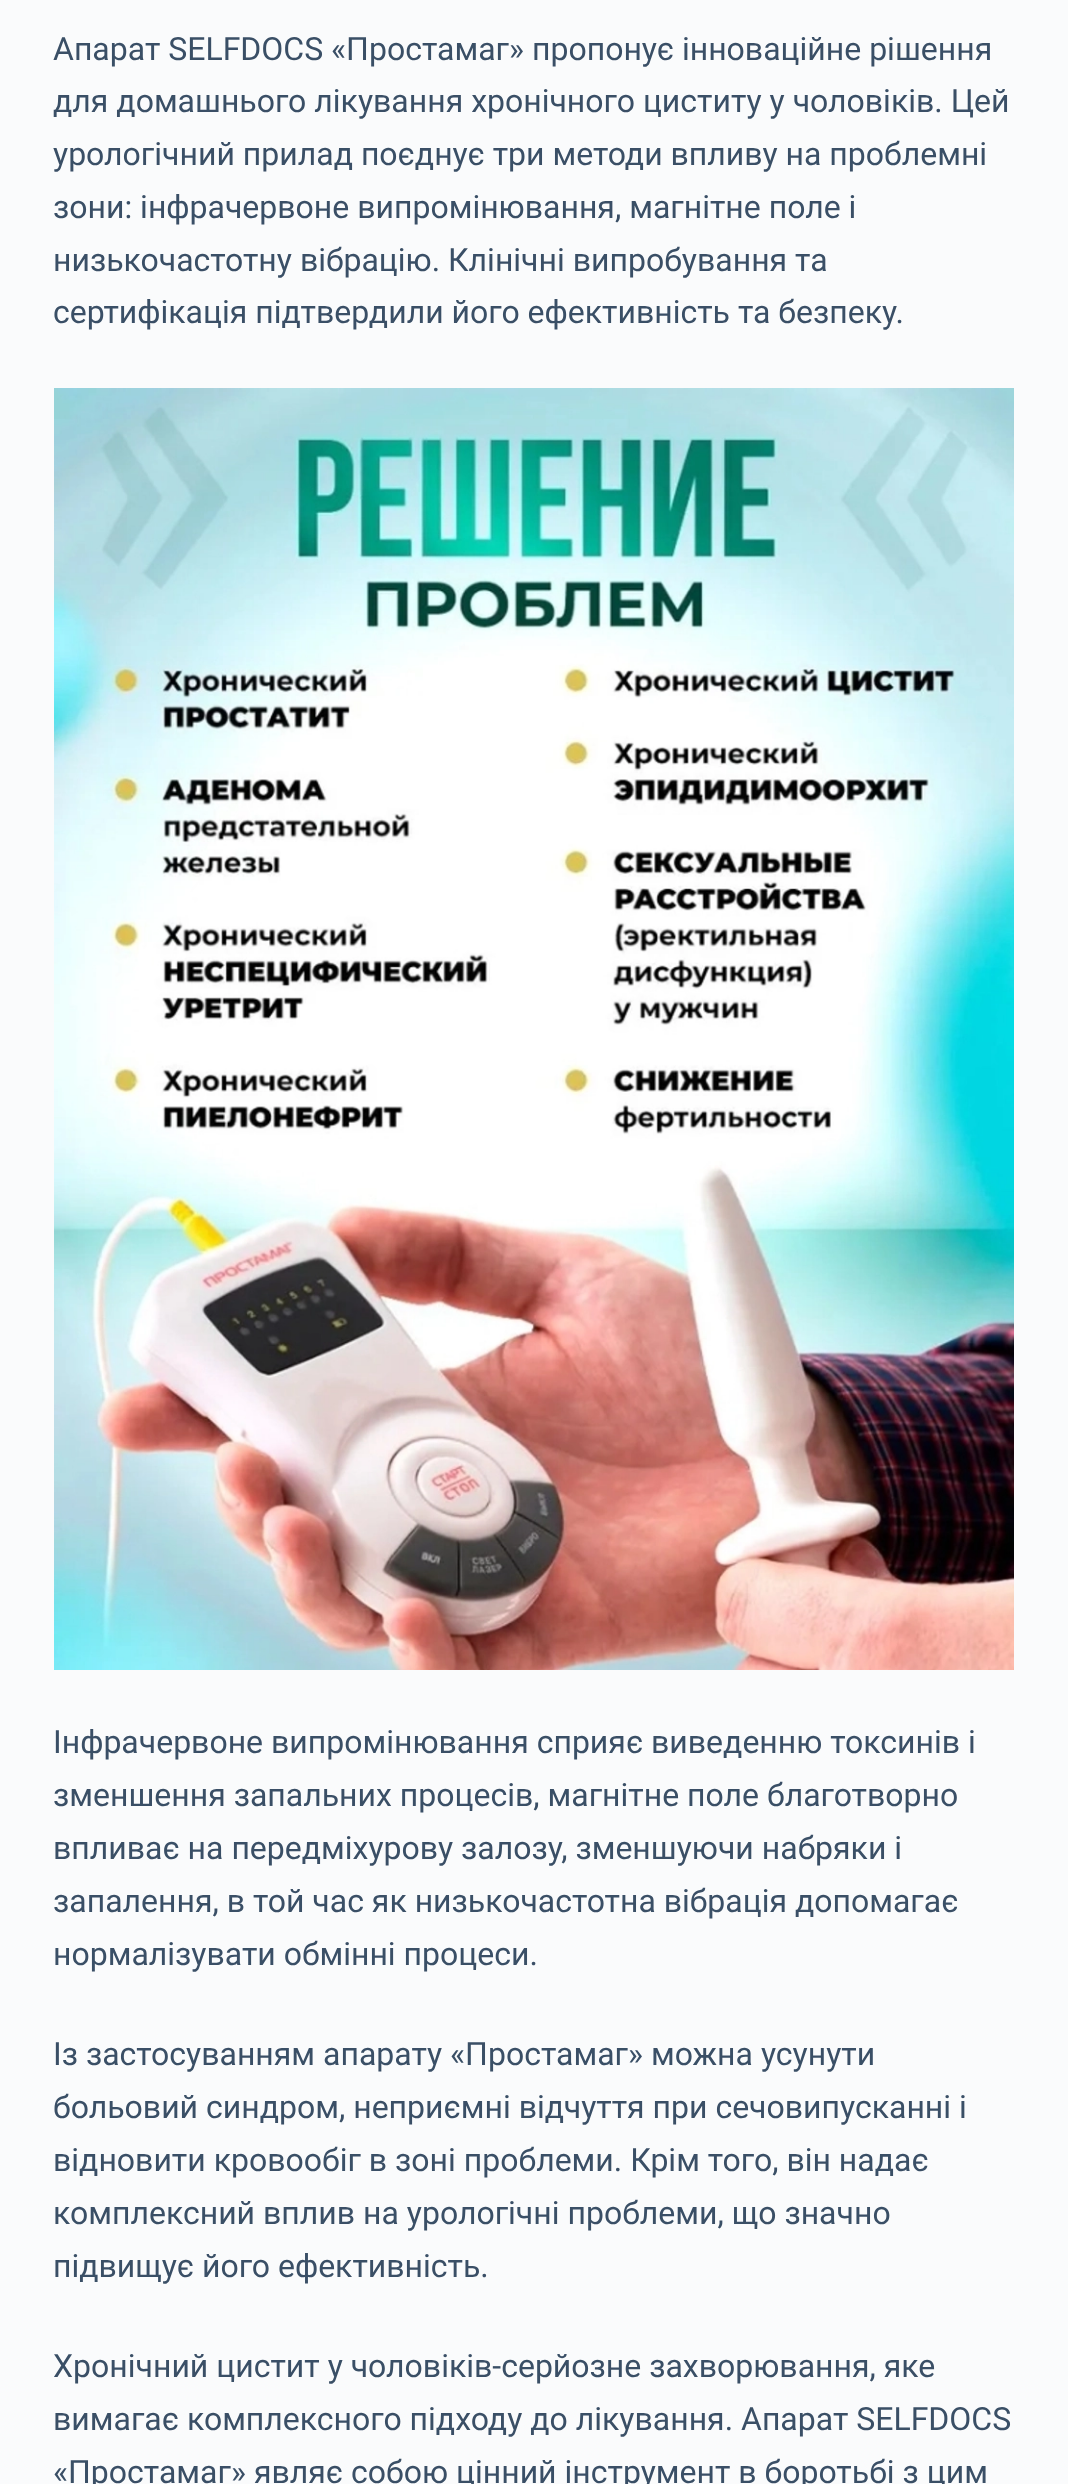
(async () => {
  const canvas = document.querySelector("canvas");
  canvas.width = 1068;
  canvas.height = 2484;
  const ctx = canvas.getContext("2d");
  ctx.miterLimit = 4;
  ctx.fontKerning = "normal";
  async function loadImage(src) {
    const img = new Image();
    img.src = src;
    await img.decode();
    return img;
  }

  ctx.fillStyle = "#fafbfc";
  ctx.fillRect(0, 0, 1068, 2484);
  ctx.drawImage(await loadImage("img/1.png"), 54, 388, 960, 1282);
  ctx.font = "32px Roboto";
  ctx.fillStyle = "#3a4f66";
  for (const [text, x, y] of [
    ["Апарат SELFDOCS «Простамаг» пропонує інноваційне рішення", 53, 60],
    ["для домашнього лікування хронічного циститу у чоловіків. Цей", 53, 112],
    ["урологічний прилад поєднує три методи впливу на проблемні", 53, 165],
    ["зони: інфрачервоне випромінювання, магнітне поле і", 53, 218],
    ["низькочастотну вібрацію. Клінічні випробування та", 53, 271],
    ["сертифікація підтвердили його ефективність та безпеку.", 53, 323],
    ["Інфрачервоне випромінювання сприяє виведенню токсинів і", 53, 1753],
    ["зменшення запальних процесів, магнітне поле благотворно", 53, 1806],
    ["впливає на передміхурову залозу, зменшуючи набряки і", 53, 1859],
    ["запалення, в той час як низькочастотна вібрація допомагає", 53, 1912],
    ["нормалізувати обмінні процеси.", 53, 1965],
    ["Із застосуванням апарату «Простамаг» можна усунути", 53, 2065],
    ["больовий синдром, неприємні відчуття при сечовипусканні і", 53, 2118],
    ["відновити кровообіг в зоні проблеми. Крім того, він надає", 53, 2171],
    ["комплексний вплив на урологічні проблеми, що значно", 53, 2224],
    ["підвищує його ефективність.", 53, 2277],
    ["Хронічний цистит у чоловіків-серйозне захворювання, яке", 53, 2377],
    ["вимагає комплексного підходу до лікування. Апарат SELFDOCS", 53, 2430],
    ["«Простамаг» являє собою цінний інструмент в боротьбі з цим", 53, 2483],
  ]) {
    ctx.fillText(text, x, y);
  }
})();
